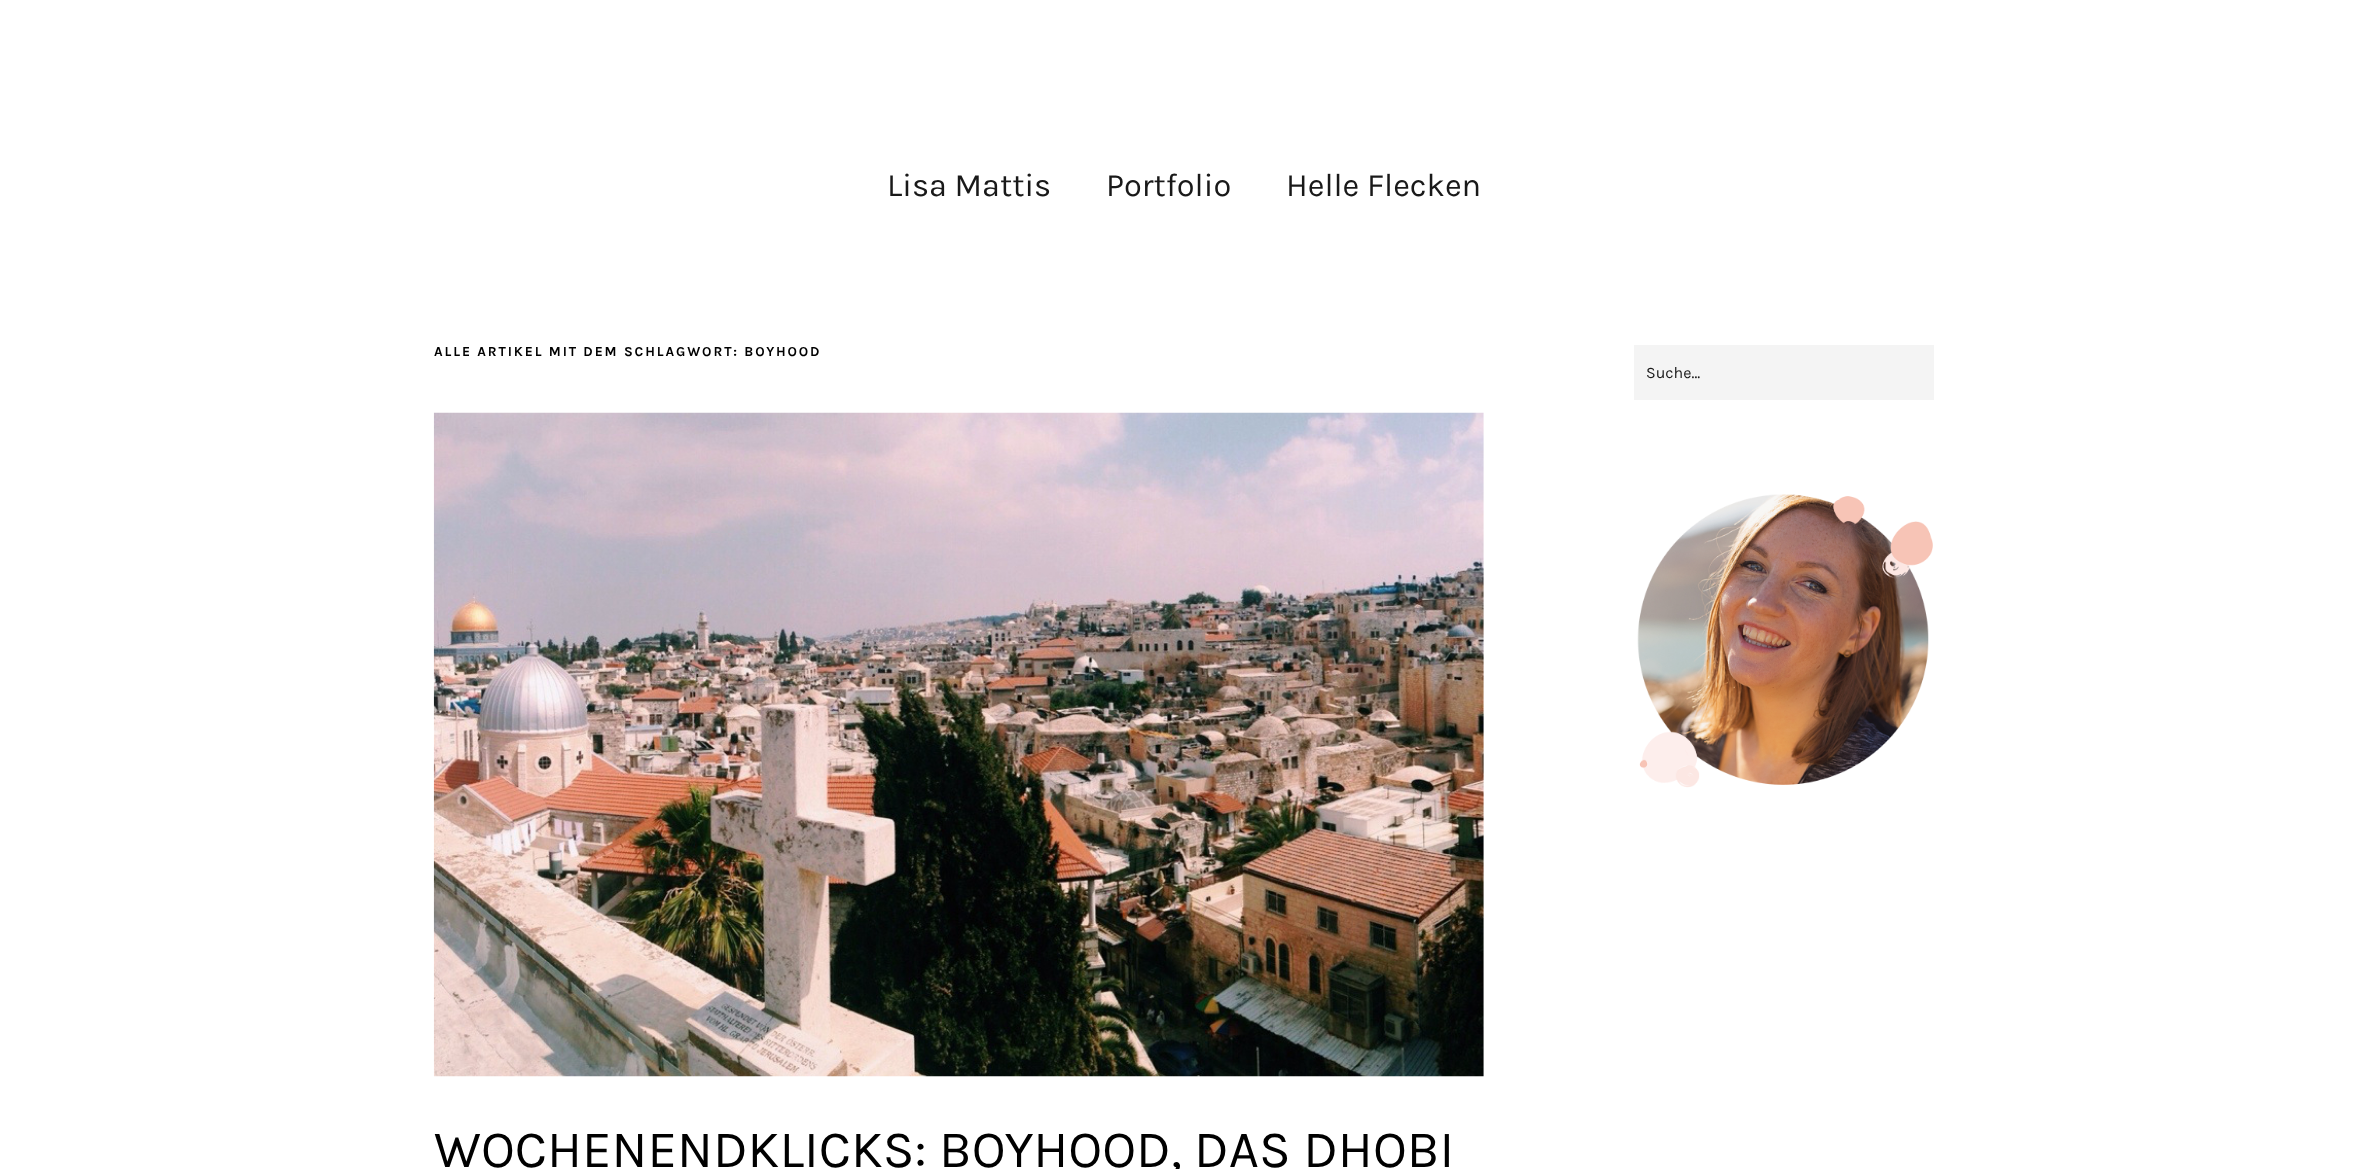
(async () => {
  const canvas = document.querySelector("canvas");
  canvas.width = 2367;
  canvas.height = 1169;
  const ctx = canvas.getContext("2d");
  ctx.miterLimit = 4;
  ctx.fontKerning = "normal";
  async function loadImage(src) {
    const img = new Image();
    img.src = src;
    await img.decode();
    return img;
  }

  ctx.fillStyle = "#ffffff";
  ctx.fillRect(0, 0, 2367, 1169);
  ctx.drawImage(await loadImage("img/1.png"), 433, 412, 1051, 665);
  ctx.fillStyle = "#f4f4f4";
  ctx.fillRect(1634, 345, 300, 55);
  ctx.drawImage(await loadImage("img/2.png"), 1637, 494, 296, 294);
  ctx.font = "32.5px Karla";
  ctx.fillStyle = "#191919";
  for (const [text, x, y] of [
    ["Lisa Mattis", 887, 196],
    ["Portfolio", 1106, 196],
    ["Helle Flecken", 1286, 196],
  ]) {
    ctx.fillText(text, x, y);
  }
  ctx.letterSpacing = "1.9px";
  ctx.font = "bold 13.75px Karla";
  ctx.fillStyle = "#000000";
  ctx.fillText("ALLE ARTIKEL MIT DEM SCHLAGWORT: BOYHOOD", 434, 356);
  ctx.letterSpacing = "0px";
  ctx.font = "52.5px Karla";
  ctx.fillText("WOCHENENDKLICKS: BOYHOOD, DAS DHOBI", 434, 1167);
  ctx.font = "16px Karla";
  ctx.fillStyle = "#191919";
  ctx.fillText("Suche…", 1646, 378);
})();
